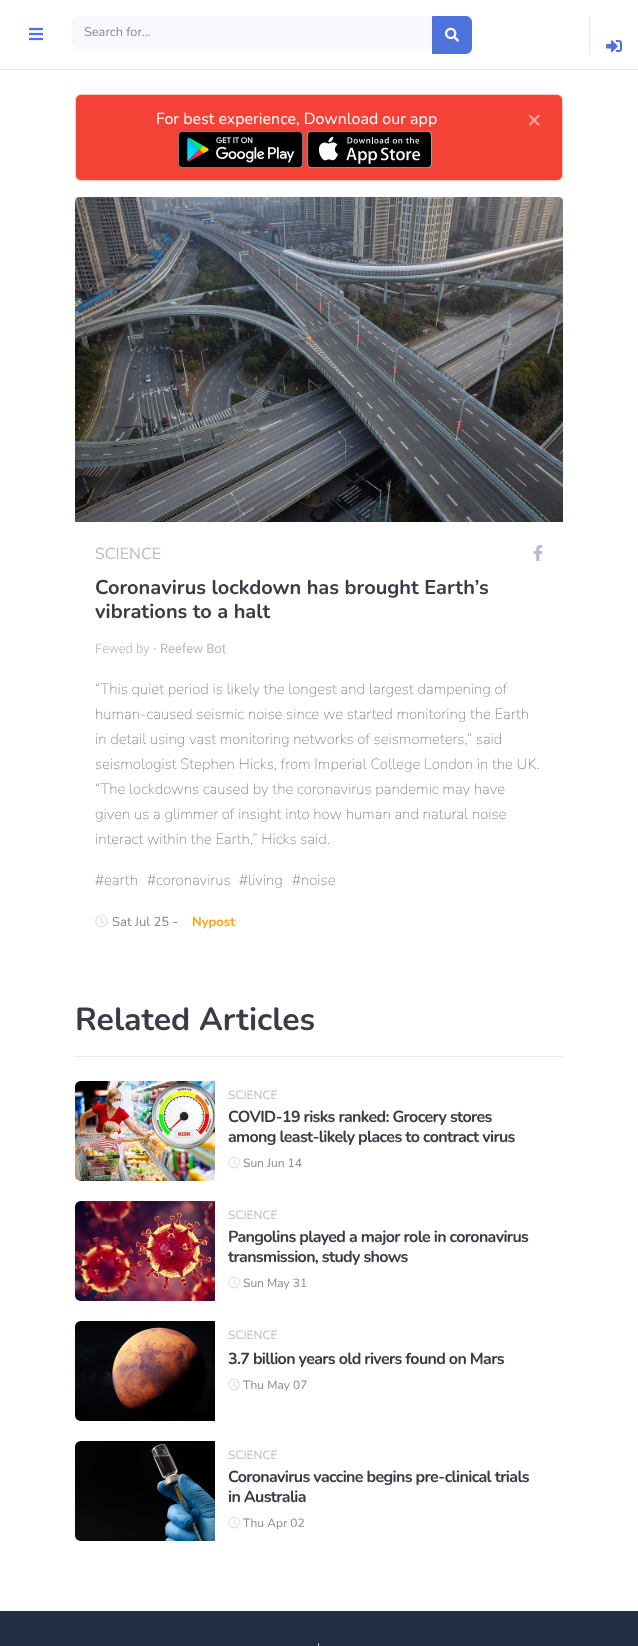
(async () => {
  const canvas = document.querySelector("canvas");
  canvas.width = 638;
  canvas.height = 1646;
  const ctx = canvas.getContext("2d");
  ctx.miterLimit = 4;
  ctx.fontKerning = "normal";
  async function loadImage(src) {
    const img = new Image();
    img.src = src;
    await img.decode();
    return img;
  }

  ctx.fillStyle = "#ffffff";
  ctx.fillRect(0, 0, 638, 1646);
  ctx.fillStyle = "#eaeaea";
  ctx.fillRect(0, 69, 638, 1);
  ctx.drawImage(await loadImage("img/1.png"), 29, 27, 14, 14);
  ctx.fillStyle = "#f8f9fc";
  ctx.beginPath();
  ctx.roundRect(72, 16, 361, 33, [6, 0, 0, 6]);
  ctx.fill();
  ctx.fillStyle = "#4e73df";
  ctx.beginPath();
  ctx.roundRect(432.5, 16.5, 39, 37, [0, 5.5, 5.5, 0]);
  ctx.fill();
  ctx.strokeStyle = "#4e73df";
  ctx.stroke();
  ctx.drawImage(await loadImage("img/2.png"), 445, 27, 14, 15);
  ctx.fillStyle = "#e3e6f0";
  ctx.fillRect(589, 16, 1, 38);
  ctx.drawImage(await loadImage("img/3.png"), 606, 40, 16, 13);
  ctx.fillStyle = "#f44336";
  ctx.beginPath();
  ctx.roundRect(75.5, 94.5, 487, 86, 5.5);
  ctx.fill();
  ctx.strokeStyle = "#f8ccc8";
  ctx.stroke();
  ctx.drawImage(await loadImage("img/4.png"), 178, 131, 125, 37);
  ctx.drawImage(await loadImage("img/5.png"), 307, 131, 125, 37);
  ctx.drawImage(await loadImage("img/6.png"), 75, 197, 488, 325);
  ctx.drawImage(await loadImage("img/7.png"), 533, 545, 10, 16);
  ctx.drawImage(await loadImage("img/8.png"), 95, 914, 13, 14);
  ctx.fillStyle = "#eaeaea";
  ctx.fillRect(75, 1056, 488, 1);
  ctx.drawImage(await loadImage("img/9.png"), 75, 1081, 140, 100);
  ctx.drawImage(await loadImage("img/10.png"), 228, 1156, 12, 13);
  ctx.drawImage(await loadImage("img/11.png"), 75, 1201, 140, 100);
  ctx.drawImage(await loadImage("img/10.png"), 228, 1276, 12, 13);
  ctx.drawImage(await loadImage("img/12.png"), 75, 1321, 140, 100);
  ctx.drawImage(await loadImage("img/10.png"), 228, 1378, 12, 13);
  ctx.drawImage(await loadImage("img/13.png"), 75, 1441, 140, 100);
  ctx.drawImage(await loadImage("img/10.png"), 228, 1516, 12, 13);
  ctx.fillStyle = "#242e44";
  ctx.fillRect(0, 1611, 638, 35);
  ctx.fillStyle = "#cacaca";
  ctx.fillRect(318, 1643, 1, 3);
  ctx.font = "12.75px Nunito";
  ctx.fillStyle = "#858796";
  ctx.fillText("Search for...", 84, 36);
  ctx.font = "16px Nunito";
  ctx.fillStyle = "#ffffff";
  ctx.fillText("For best experience, Download our app", 156, 124);
  ctx.font = "bold 24px Nunito";
  ctx.fillStyle = "#faa19b";
  ctx.fillText("×", 527, 127);
  ctx.font = "16px Nunito";
  ctx.fillStyle = "#b7b9cc";
  ctx.fillText("SCIENCE", 95, 559);
  ctx.font = "bold 20px Nunito";
  ctx.fillStyle = "#3a3b45";
  ctx.fillText("Coronavirus lockdown has brought Earth’s", 95, 594);
  ctx.fillText("vibrations to a halt", 95, 618);
  ctx.font = "300 13px Heebo";
  ctx.fillStyle = "#b7b9cc";
  ctx.fillText("Fewed by -", 95, 653);
  ctx.font = "13px Heebo";
  ctx.fillText("Reefew Bot", 160, 653);
  ctx.font = "200 15px Nunito";
  ctx.fillStyle = "#858796";
  for (const [text, x, y] of [
    ["“This quiet period is likely the longest and largest dampening of", 95, 694],
    ["human-caused seismic noise since we started monitoring the Earth", 95, 719],
    ["in detail using vast monitoring networks of seismometers,” said", 95, 744],
    ["seismologist Stephen Hicks, from Imperial College London in the UK.", 95, 769],
    ["“The lockdowns caused by the coronavirus pandemic may have", 95, 794],
    ["given us a glimmer of insight into how human and natural noise", 95, 819],
    ["interact within the Earth,” Hicks said.", 95, 844],
    ["#earth", 95, 885],
    ["#coronavirus", 147, 885],
    ["#living", 239, 885],
    ["#noise", 292, 885],
  ]) {
    ctx.fillText(text, x, y);
  }
  ctx.font = "13px Nunito";
  ctx.fillText("Sat Jul 25 -", 112, 926);
  ctx.font = "bold 13px Nunito";
  ctx.fillStyle = "#fca311";
  ctx.fillText("Nypost", 192, 926);
  ctx.font = "bold 32px Nunito";
  ctx.fillStyle = "#3a3b45";
  ctx.fillText("Related Articles", 75, 1030);
  ctx.font = "12px Nunito";
  ctx.fillStyle = "#b7b9cc";
  ctx.fillText("SCIENCE", 228, 1099);
  ctx.letterSpacing = "-0.65px";
  ctx.font = "bold 16px Nunito";
  ctx.fillStyle = "#3a3b45";
  ctx.fillText("COVID-19 risks ranked: Grocery stores", 228, 1122);
  ctx.fillText("among least-likely places to contract virus", 228, 1142);
  ctx.letterSpacing = "0px";
  ctx.font = "12px Nunito";
  ctx.fillStyle = "#858796";
  ctx.fillText("Sun Jun 14", 243, 1167);
  ctx.fillStyle = "#b7b9cc";
  ctx.fillText("SCIENCE", 228, 1219);
  ctx.letterSpacing = "-0.65px";
  ctx.font = "bold 16px Nunito";
  ctx.fillStyle = "#3a3b45";
  ctx.fillText("Pangolins played a major role in coronavirus", 228, 1242);
  ctx.fillText("transmission, study shows", 228, 1262);
  ctx.letterSpacing = "0px";
  ctx.font = "12px Nunito";
  ctx.fillStyle = "#858796";
  ctx.fillText("Sun May 31", 243, 1287);
  ctx.fillStyle = "#b7b9cc";
  ctx.fillText("SCIENCE", 228, 1339);
  ctx.letterSpacing = "-0.65px";
  ctx.font = "bold 16px Nunito";
  ctx.fillStyle = "#3a3b45";
  ctx.fillText("3.7 billion years old rivers found on Mars", 228, 1364);
  ctx.letterSpacing = "0px";
  ctx.font = "12px Nunito";
  ctx.fillStyle = "#858796";
  ctx.fillText("Thu May 07", 243, 1389);
  ctx.fillStyle = "#b7b9cc";
  ctx.fillText("SCIENCE", 228, 1459);
  ctx.letterSpacing = "-0.65px";
  ctx.font = "bold 16px Nunito";
  ctx.fillStyle = "#3a3b45";
  ctx.fillText("Coronavirus vaccine begins pre-clinical trials", 228, 1482);
  ctx.fillText("in Australia", 228, 1502);
  ctx.letterSpacing = "0px";
  ctx.font = "12px Nunito";
  ctx.fillStyle = "#858796";
  ctx.fillText("Thu Apr 02", 243, 1527);
})();
